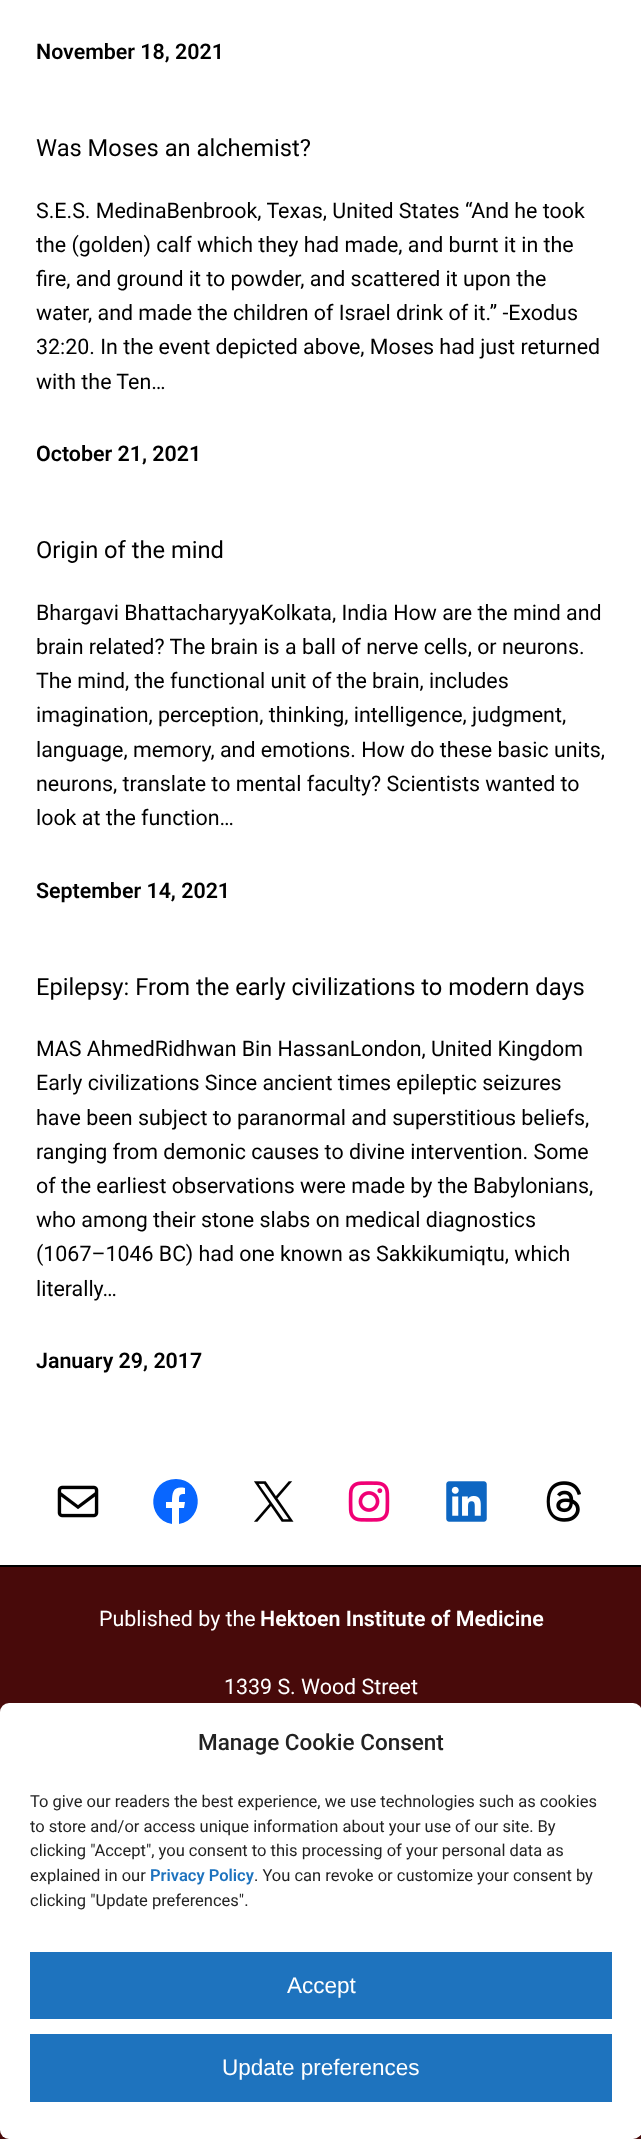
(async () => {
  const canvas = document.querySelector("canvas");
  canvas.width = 641;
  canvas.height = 2139;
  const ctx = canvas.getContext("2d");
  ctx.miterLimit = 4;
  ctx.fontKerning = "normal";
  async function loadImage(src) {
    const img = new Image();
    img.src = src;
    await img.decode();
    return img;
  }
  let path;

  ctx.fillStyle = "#ffffff";
  ctx.fillRect(0, 0, 641, 2139);
  ctx.drawImage(await loadImage("img/1.png"), 57, 1485, 42, 33);
  ctx.fillStyle = "#0866ff";
  path = new Path2D("M176 1479C148 1479 145 1519 172 1524V1508H166V1502H172C172 1491 174 1486 185 1488V1494C179 1494 179 1495 179 1502H185L184 1508H179V1524C206 1519 203 1479 176 1479Z");
  ctx.fill(path);
  ctx.drawImage(await loadImage("img/2.png"), 254, 1481, 40, 41);
  ctx.drawImage(await loadImage("img/3.png"), 348, 1481, 42, 41);
  ctx.drawImage(await loadImage("img/4.png"), 446, 1481, 41, 41);
  ctx.drawImage(await loadImage("img/5.png"), 546, 1481, 35, 41);
  ctx.fillStyle = "#480a0a";
  ctx.fillRect(0, 1567, 641, 572);
  ctx.fillStyle = "#000000";
  ctx.fillRect(0, 1565, 641, 2);
  ctx.fillStyle = "#ffffff";
  ctx.beginPath();
  ctx.roundRect(0, 1703, 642, 436, 9);
  ctx.fill();
  ctx.fillStyle = "#1e73be";
  ctx.fillRect(30, 1952, 582, 67);
  ctx.fillRect(30, 2034, 582, 68);
  ctx.font = "600 21.4px Roboto";
  ctx.fillStyle = "#000000";
  ctx.fillText("November 18, 2021", 36, 59);
  ctx.font = "23.7px Roboto";
  ctx.fillText("Was Moses an alchemist?", 36, 156);
  ctx.font = "21.4px Roboto";
  for (const [text, x, y] of [
    ["S.E.S. MedinaBenbrook, Texas, United States “And he took", 36, 218],
    ["the (golden) calf which they had made, and burnt it in the", 36, 252],
    ["fire, and ground it to powder, and scattered it upon the", 36, 286],
    ["water, and made the children of Israel drink of it.” -Exodus", 36, 320],
    ["32:20. In the event depicted above, Moses had just returned", 36, 354],
    ["with the Ten…", 36, 389],
  ]) {
    ctx.fillText(text, x, y);
  }
  ctx.font = "600 21.4px Roboto";
  ctx.fillText("October 21, 2021", 36, 461);
  ctx.font = "23.7px Roboto";
  ctx.fillText("Origin of the mind", 36, 558);
  ctx.font = "21.4px Roboto";
  for (const [text, x, y] of [
    ["Bhargavi BhattacharyyaKolkata, India How are the mind and", 36, 620],
    ["brain related? The brain is a ball of nerve cells, or neurons.", 36, 654],
    ["The mind, the functional unit of the brain, includes", 36, 688],
    ["imagination, perception, thinking, intelligence, judgment,", 36, 722],
    ["language, memory, and emotions. How do these basic units,", 36, 757],
    ["neurons, translate to mental faculty? Scientists wanted to", 36, 791],
    ["look at the function…", 36, 825],
  ]) {
    ctx.fillText(text, x, y);
  }
  ctx.font = "600 21.4px Roboto";
  ctx.fillText("September 14, 2021", 36, 898);
  ctx.font = "23.7px Roboto";
  ctx.fillText("Epilepsy: From the early civilizations to modern days", 36, 995);
  ctx.font = "21.4px Roboto";
  for (const [text, x, y] of [
    ["MAS AhmedRidhwan Bin HassanLondon, United Kingdom", 36, 1056],
    ["Early civilizations Since ancient times epileptic seizures", 36, 1090],
    ["have been subject to paranormal and superstitious beliefs,", 36, 1125],
    ["ranging from demonic causes to divine intervention. Some", 36, 1159],
    ["of the earliest observations were made by the Babylonians,", 36, 1193],
    ["who among their stone slabs on medical diagnostics", 36, 1227],
    ["(1067–1046 BC) had one known as Sakkikumiqtu, which", 36, 1261],
    ["literally…", 36, 1296],
  ]) {
    ctx.fillText(text, x, y);
  }
  ctx.font = "600 21.4px Roboto";
  ctx.fillText("January 29, 2017", 36, 1368);
  ctx.font = "21.4px Roboto";
  ctx.fillStyle = "#ffffff";
  ctx.fillText("Published by the", 99, 1626);
  ctx.font = "600 21.4px Roboto";
  ctx.fillText("Hektoen Institute of Medicine", 260, 1626);
  ctx.font = "21.4px Roboto";
  ctx.fillText("1339 S. Wood Street", 224, 1694);
  ctx.font = "500 22.5px Roboto";
  ctx.fillStyle = "#222222";
  ctx.fillText("Manage Cookie Consent", 198, 1750);
  ctx.font = "16.5px Roboto";
  for (const [text, x, y] of [
    ["To give our readers the best experience, we use technologies such as cookies", 30, 1807],
    ["to store and/or access unique information about your use of our site. By", 30, 1832],
    ["clicking \"Accept\", you consent to this processing of your personal data as", 30, 1856],
    ["explained in our", 30, 1881],
  ]) {
    ctx.fillText(text, x, y);
  }
  ctx.font = "600 16.5px Roboto";
  ctx.fillStyle = "#1e73be";
  ctx.fillText("Privacy Policy", 150, 1881);
  ctx.font = "16.5px Roboto";
  ctx.fillStyle = "#222222";
  ctx.fillText(". You can revoke or customize your consent by", 254, 1881);
  ctx.fillText("clicking \"Update preferences\".", 30, 1906);
  ctx.font = "22.5px Liberation Sans";
  ctx.fillStyle = "#ffffff";
  ctx.fillText("Accept", 287, 1993);
  ctx.fillText("Update preferences", 222, 2075);
})();
